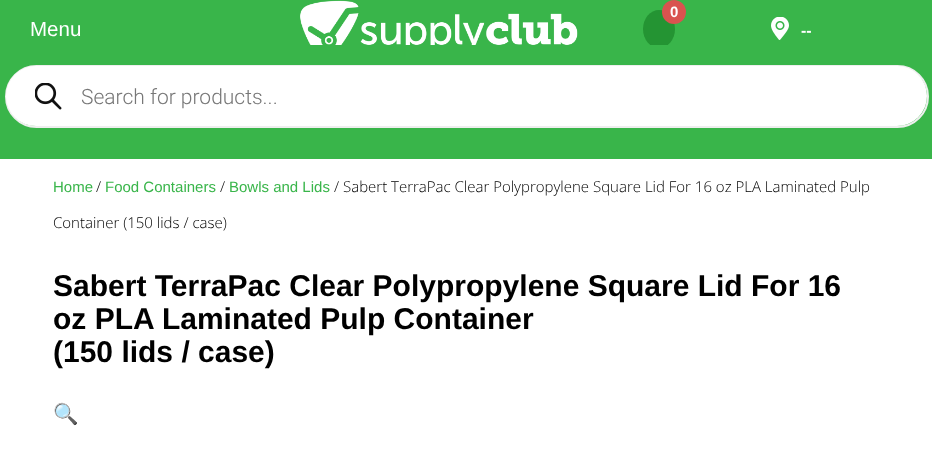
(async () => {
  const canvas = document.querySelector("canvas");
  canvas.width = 932;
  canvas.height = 472;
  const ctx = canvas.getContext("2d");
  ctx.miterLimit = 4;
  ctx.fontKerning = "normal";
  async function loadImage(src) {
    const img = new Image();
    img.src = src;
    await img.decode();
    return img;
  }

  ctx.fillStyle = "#ffffff";
  ctx.fillRect(0, 0, 932, 472);
  ctx.fillStyle = "#39b54a";
  ctx.fillRect(0, 0, 932, 45);
  ctx.drawImage(await loadImage("img/1.png"), 300, 0, 278, 45);
  ctx.fillStyle = "#249433";
  ctx.beginPath();
  ctx.ellipse(659, 29, 16, 19, 0, 0, Math.PI * 2);
  ctx.fill();
  ctx.fillStyle = "#d9534f";
  ctx.beginPath();
  ctx.arc(674, 12, 12, 0, Math.PI * 2);
  ctx.fill();
  ctx.drawImage(await loadImage("img/2.png"), 771, 17, 18, 23);
  ctx.fillStyle = "#39b54a";
  ctx.fillRect(0, 45, 932, 114);
  ctx.beginPath();
  ctx.roundRect(6, 66, 922, 61, 30.5);
  ctx.strokeStyle = "#eeeeee";
  ctx.lineWidth = 2;
  ctx.stroke();
  ctx.fillStyle = "#ffffff";
  ctx.beginPath();
  ctx.roundRect(6, 66, 921, 60, 30);
  ctx.fill();
  ctx.drawImage(await loadImage("img/3.png"), 35, 83, 27, 27);
  ctx.font = "bold 15px Liberation Sans";
  ctx.fillText("0", 670, 17);
  ctx.font = "20.5px Liberation Sans";
  ctx.fillText("Menu", 30, 36);
  ctx.font = "bold 16px Liberation Sans";
  ctx.fillText("--", 801, 36);
  ctx.font = "300 21px Roboto";
  ctx.fillStyle = "#777777";
  ctx.fillText("Search for products...", 81, 104);
  ctx.font = "15px Liberation Sans";
  ctx.fillStyle = "#39b54a";
  ctx.fillText("Home", 53, 192);
  ctx.font = "300 15px Open Sans";
  ctx.fillStyle = "#000000";
  ctx.fillText("/", 96, 192);
  ctx.font = "15px Liberation Sans";
  ctx.fillStyle = "#39b54a";
  ctx.fillText("Food Containers", 105, 192);
  ctx.font = "300 15px Open Sans";
  ctx.fillStyle = "#000000";
  ctx.fillText("/", 220, 192);
  ctx.font = "15px Liberation Sans";
  ctx.fillStyle = "#39b54a";
  ctx.fillText("Bowls and Lids", 229, 192);
  ctx.font = "300 15px Open Sans";
  ctx.fillStyle = "#000000";
  ctx.fillText("/ Sabert TerraPac Clear Polypropylene Square Lid For 16 oz PLA Laminated Pulp", 334, 192);
  ctx.fillText("Container (150 lids / case)", 53, 228);
  ctx.font = "bold 30px Liberation Sans";
  for (const [text, x, y] of [
    ["Sabert TerraPac Clear Polypropylene Square Lid For 16", 53, 296],
    ["oz PLA Laminated Pulp Container", 53, 329],
    ["(150 lids / case)", 53, 362],
  ]) {
    ctx.fillText(text, x, y);
  }
  ctx.font = "20.5px Noto Color Emoji";
  ctx.fillStyle = "#39b54a";
  ctx.fillText("🔍", 53, 421);
})();
